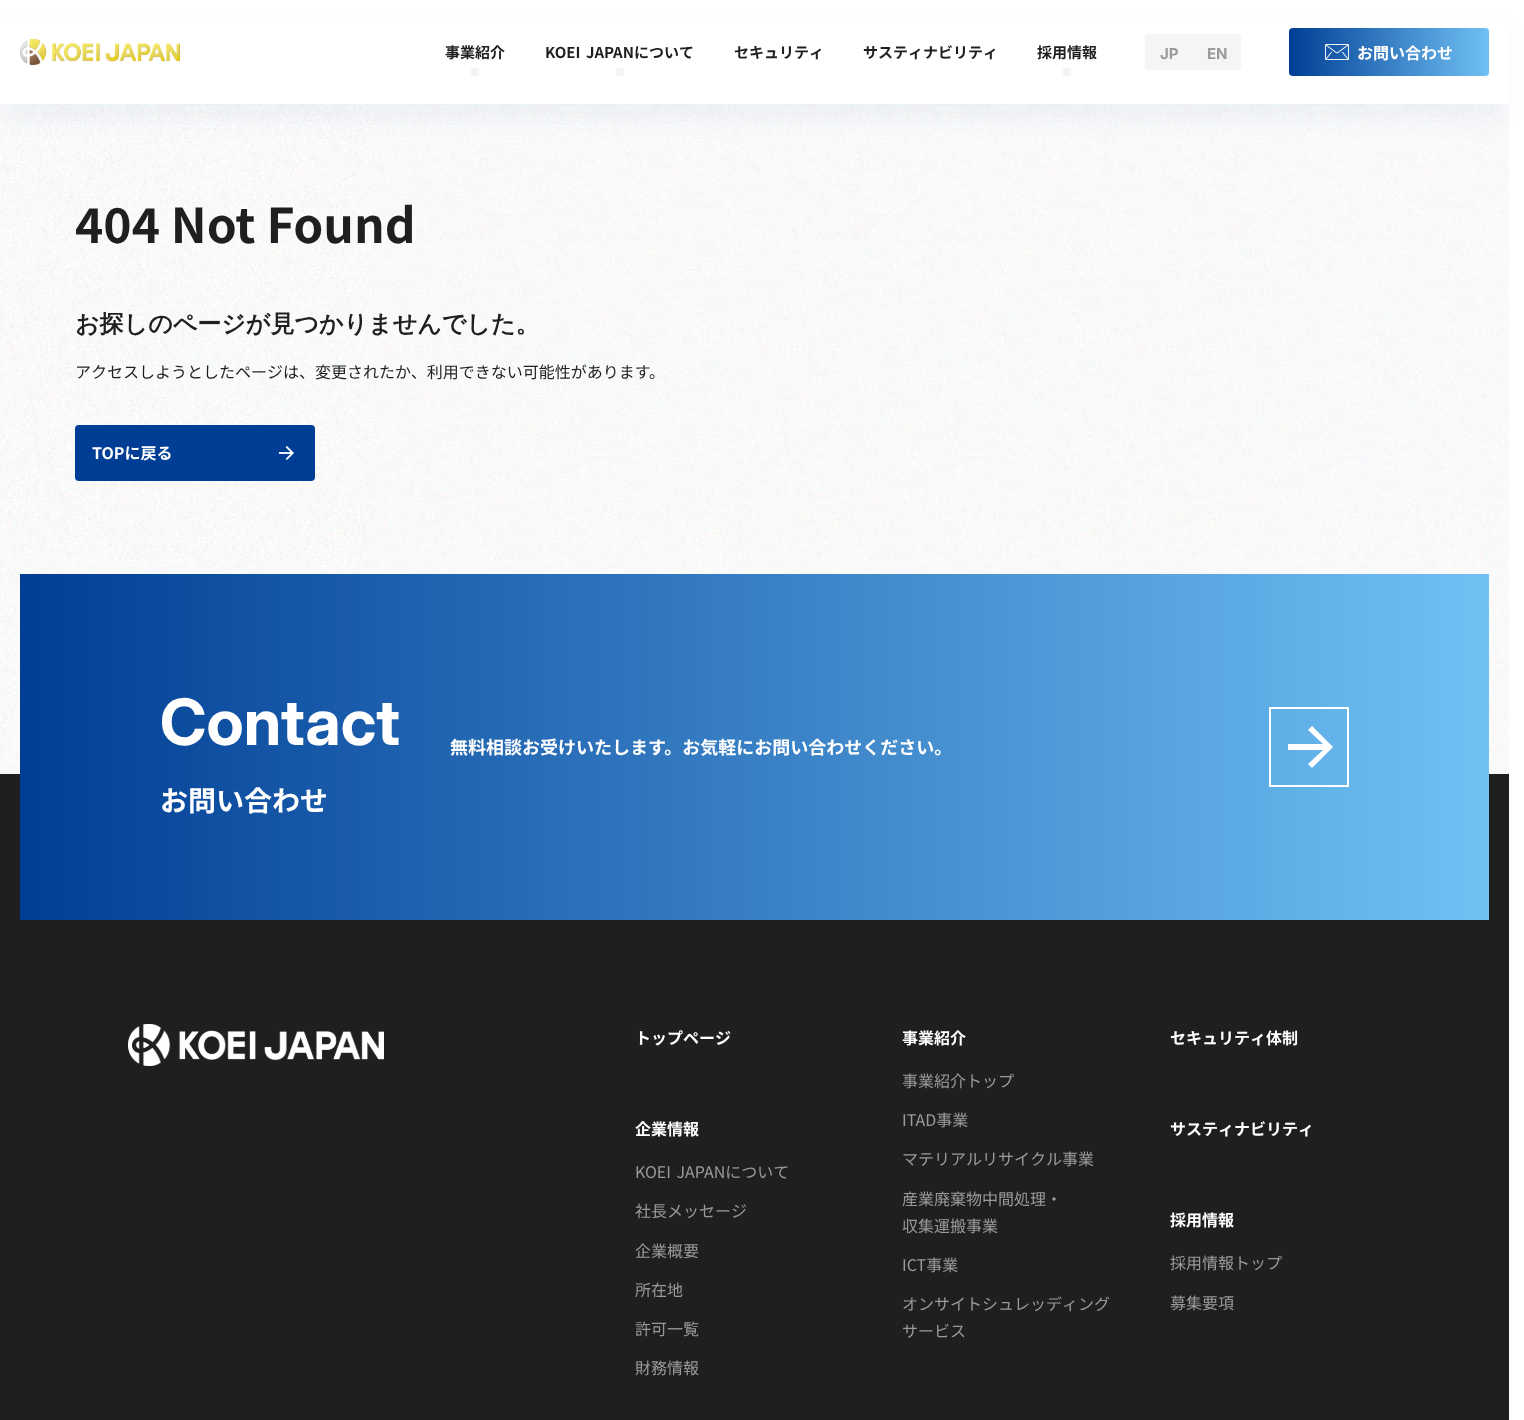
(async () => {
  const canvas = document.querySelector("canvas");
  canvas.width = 1524;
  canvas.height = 1420;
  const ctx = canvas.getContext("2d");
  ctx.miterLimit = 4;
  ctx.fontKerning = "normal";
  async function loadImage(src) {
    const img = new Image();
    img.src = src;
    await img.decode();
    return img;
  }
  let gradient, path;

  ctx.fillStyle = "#ffffff";
  ctx.fillRect(0, 0, 1524, 1420);
  ctx.drawImage(await loadImage("img/3.png"), 0, 104, 1509, 670);
  ctx.fillStyle = "rgba(0, 62, 149, 0.05)";
  ctx.filter = "blur(10px)";
  ctx.beginPath();
  ctx.rect(5, 25, 1499, 94);
  ctx.fill();
  ctx.filter = "none";
  ctx.fillStyle = "#ffffff";
  ctx.fillRect(0, 17, 1509, 87);
  ctx.drawImage(await loadImage("img/1.png"), 20, 39, 160, 26);
  for (const [x, y, w, h, color] of [
    [471, 68, 8, 8, "#f5f5f5"],
    [616, 68, 8, 8, "#f5f5f5"],
    [1063, 68, 8, 8, "#f5f5f5"],
  ]) {
    ctx.fillStyle = color;
    ctx.fillRect(x, y, w, h);
  }
  ctx.beginPath();
  ctx.roundRect(1145, 34, 96, 36, 4);
  ctx.fill();
  gradient = ctx.createLinearGradient(1289, 52, 1489, 52);
  gradient.addColorStop(0, "#003e95");
  gradient.addColorStop(1, "#70c1f4");
  ctx.fillStyle = gradient;
  ctx.beginPath();
  ctx.roundRect(1289, 28, 200, 48, 4);
  ctx.fill();
  ctx.drawImage(await loadImage("img/2.png"), 1325, 44, 24, 16);
  ctx.fillStyle = "#003e95";
  ctx.beginPath();
  ctx.roundRect(75, 425, 240, 56, 4);
  ctx.fill();
  ctx.drawImage(await loadImage("img/4.png"), 278, 446, 16, 14);
  ctx.fillStyle = "#1f1f1f";
  ctx.fillRect(0, 774, 1509, 646);
  gradient = ctx.createLinearGradient(20, 747, 1489, 747);
  gradient.addColorStop(0, "#003e95");
  gradient.addColorStop(1, "#70c1f4");
  ctx.fillStyle = gradient;
  ctx.fillRect(20, 574, 1469, 346);
  ctx.strokeStyle = "#ffffff";
  ctx.lineWidth = 2;
  ctx.strokeRect(1270, 708, 78, 78);
  ctx.fillStyle = "#ffffff";
  path = new Path2D("M1323 744H1288V750H1323L1308 764L1312 768L1333 747L1312 726L1308 730Z");
  ctx.fill(path);
  ctx.drawImage(await loadImage("img/5.png"), 128, 1024, 256, 42);
  ctx.font = "bold 15px Noto Sans JP";
  ctx.fillStyle = "#1f1f1f";
  ctx.fillText("事業紹介", 445, 58);
  ctx.wordSpacing = "2px";
  ctx.fillText("KOEI JAPANについて", 545, 58);
  ctx.wordSpacing = "0px";
  for (const [text, x, y] of [
    ["セキュリティ", 734, 58],
    ["サスティナビリティ", 863, 58],
    ["採用情報", 1037, 58],
  ]) {
    ctx.fillText(text, x, y);
  }
  ctx.font = "bold 15px 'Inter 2'";
  ctx.fillStyle = "#9a9a9a";
  ctx.fillText("JP", 1160, 59);
  ctx.fillText("EN", 1207, 59);
  ctx.font = "bold 16px Noto Sans JP";
  ctx.fillStyle = "#ffffff";
  ctx.fillText("お問い合わせ", 1357, 59);
  ctx.font = "bold 48px Noto Sans JP";
  ctx.fillStyle = "#1f1f1f";
  ctx.fillText("404 Not Found", 75, 243);
  ctx.font = "bold 24px WenQuanYi Zen Hei";
  ctx.fillText("お探しのページが見つかりませんでした。", 75, 332);
  ctx.font = "16px Noto Sans JP";
  ctx.fillText("アクセスしようとしたページは、変更されたか、利用できない可能性があります。", 75, 378);
  ctx.font = "bold 16px Noto Sans JP";
  ctx.fillStyle = "#ffffff";
  ctx.fillText("TOPに戻る", 92, 459);
  ctx.font = "bold 64px Inter";
  ctx.fillText("Contact", 160, 745);
  ctx.font = "bold 28px Noto Sans JP";
  ctx.fillText("お問い合わせ", 160, 811);
  ctx.font = "bold 18px Noto Sans JP";
  ctx.fillText("無料相談お受けいたします。お気軽にお問い合わせください。", 450, 754);
  ctx.font = "bold 16px Noto Sans JP";
  ctx.fillText("トップページ", 635, 1044);
  ctx.fillText("企業情報", 635, 1135);
  ctx.wordSpacing = "2px";
  ctx.font = "16px Noto Sans JP";
  ctx.fillStyle = "#9a9a9a";
  ctx.fillText("KOEI JAPANについて", 635, 1178);
  ctx.wordSpacing = "0px";
  for (const [text, x, y] of [
    ["社長メッセージ", 635, 1217],
    ["企業概要", 635, 1257],
    ["所在地", 635, 1296],
    ["許可一覧", 635, 1335],
    ["財務情報", 635, 1374],
  ]) {
    ctx.fillText(text, x, y);
  }
  ctx.font = "bold 16px Noto Sans JP";
  ctx.fillStyle = "#ffffff";
  ctx.fillText("事業紹介", 902, 1044);
  ctx.font = "16px Noto Sans JP";
  ctx.fillStyle = "#9a9a9a";
  for (const [text, x, y] of [
    ["事業紹介トップ", 902, 1087],
    ["ITAD事業", 902, 1126],
    ["マテリアルリサイクル事業", 902, 1165],
    ["産業廃棄物中間処理・", 902, 1205],
    ["収集運搬事業", 902, 1232],
    ["ICT事業", 902, 1271],
    ["オンサイトシュレッディング", 902, 1310],
    ["サービス", 902, 1337],
  ]) {
    ctx.fillText(text, x, y);
  }
  ctx.font = "bold 16px Noto Sans JP";
  ctx.fillStyle = "#ffffff";
  for (const [text, x, y] of [
    ["セキュリティ体制", 1170, 1044],
    ["サスティナビリティ", 1170, 1135],
    ["採用情報", 1170, 1226],
  ]) {
    ctx.fillText(text, x, y);
  }
  ctx.font = "16px Noto Sans JP";
  ctx.fillStyle = "#9a9a9a";
  ctx.fillText("採用情報トップ", 1170, 1269);
  ctx.fillText("募集要項", 1170, 1309);
})();
